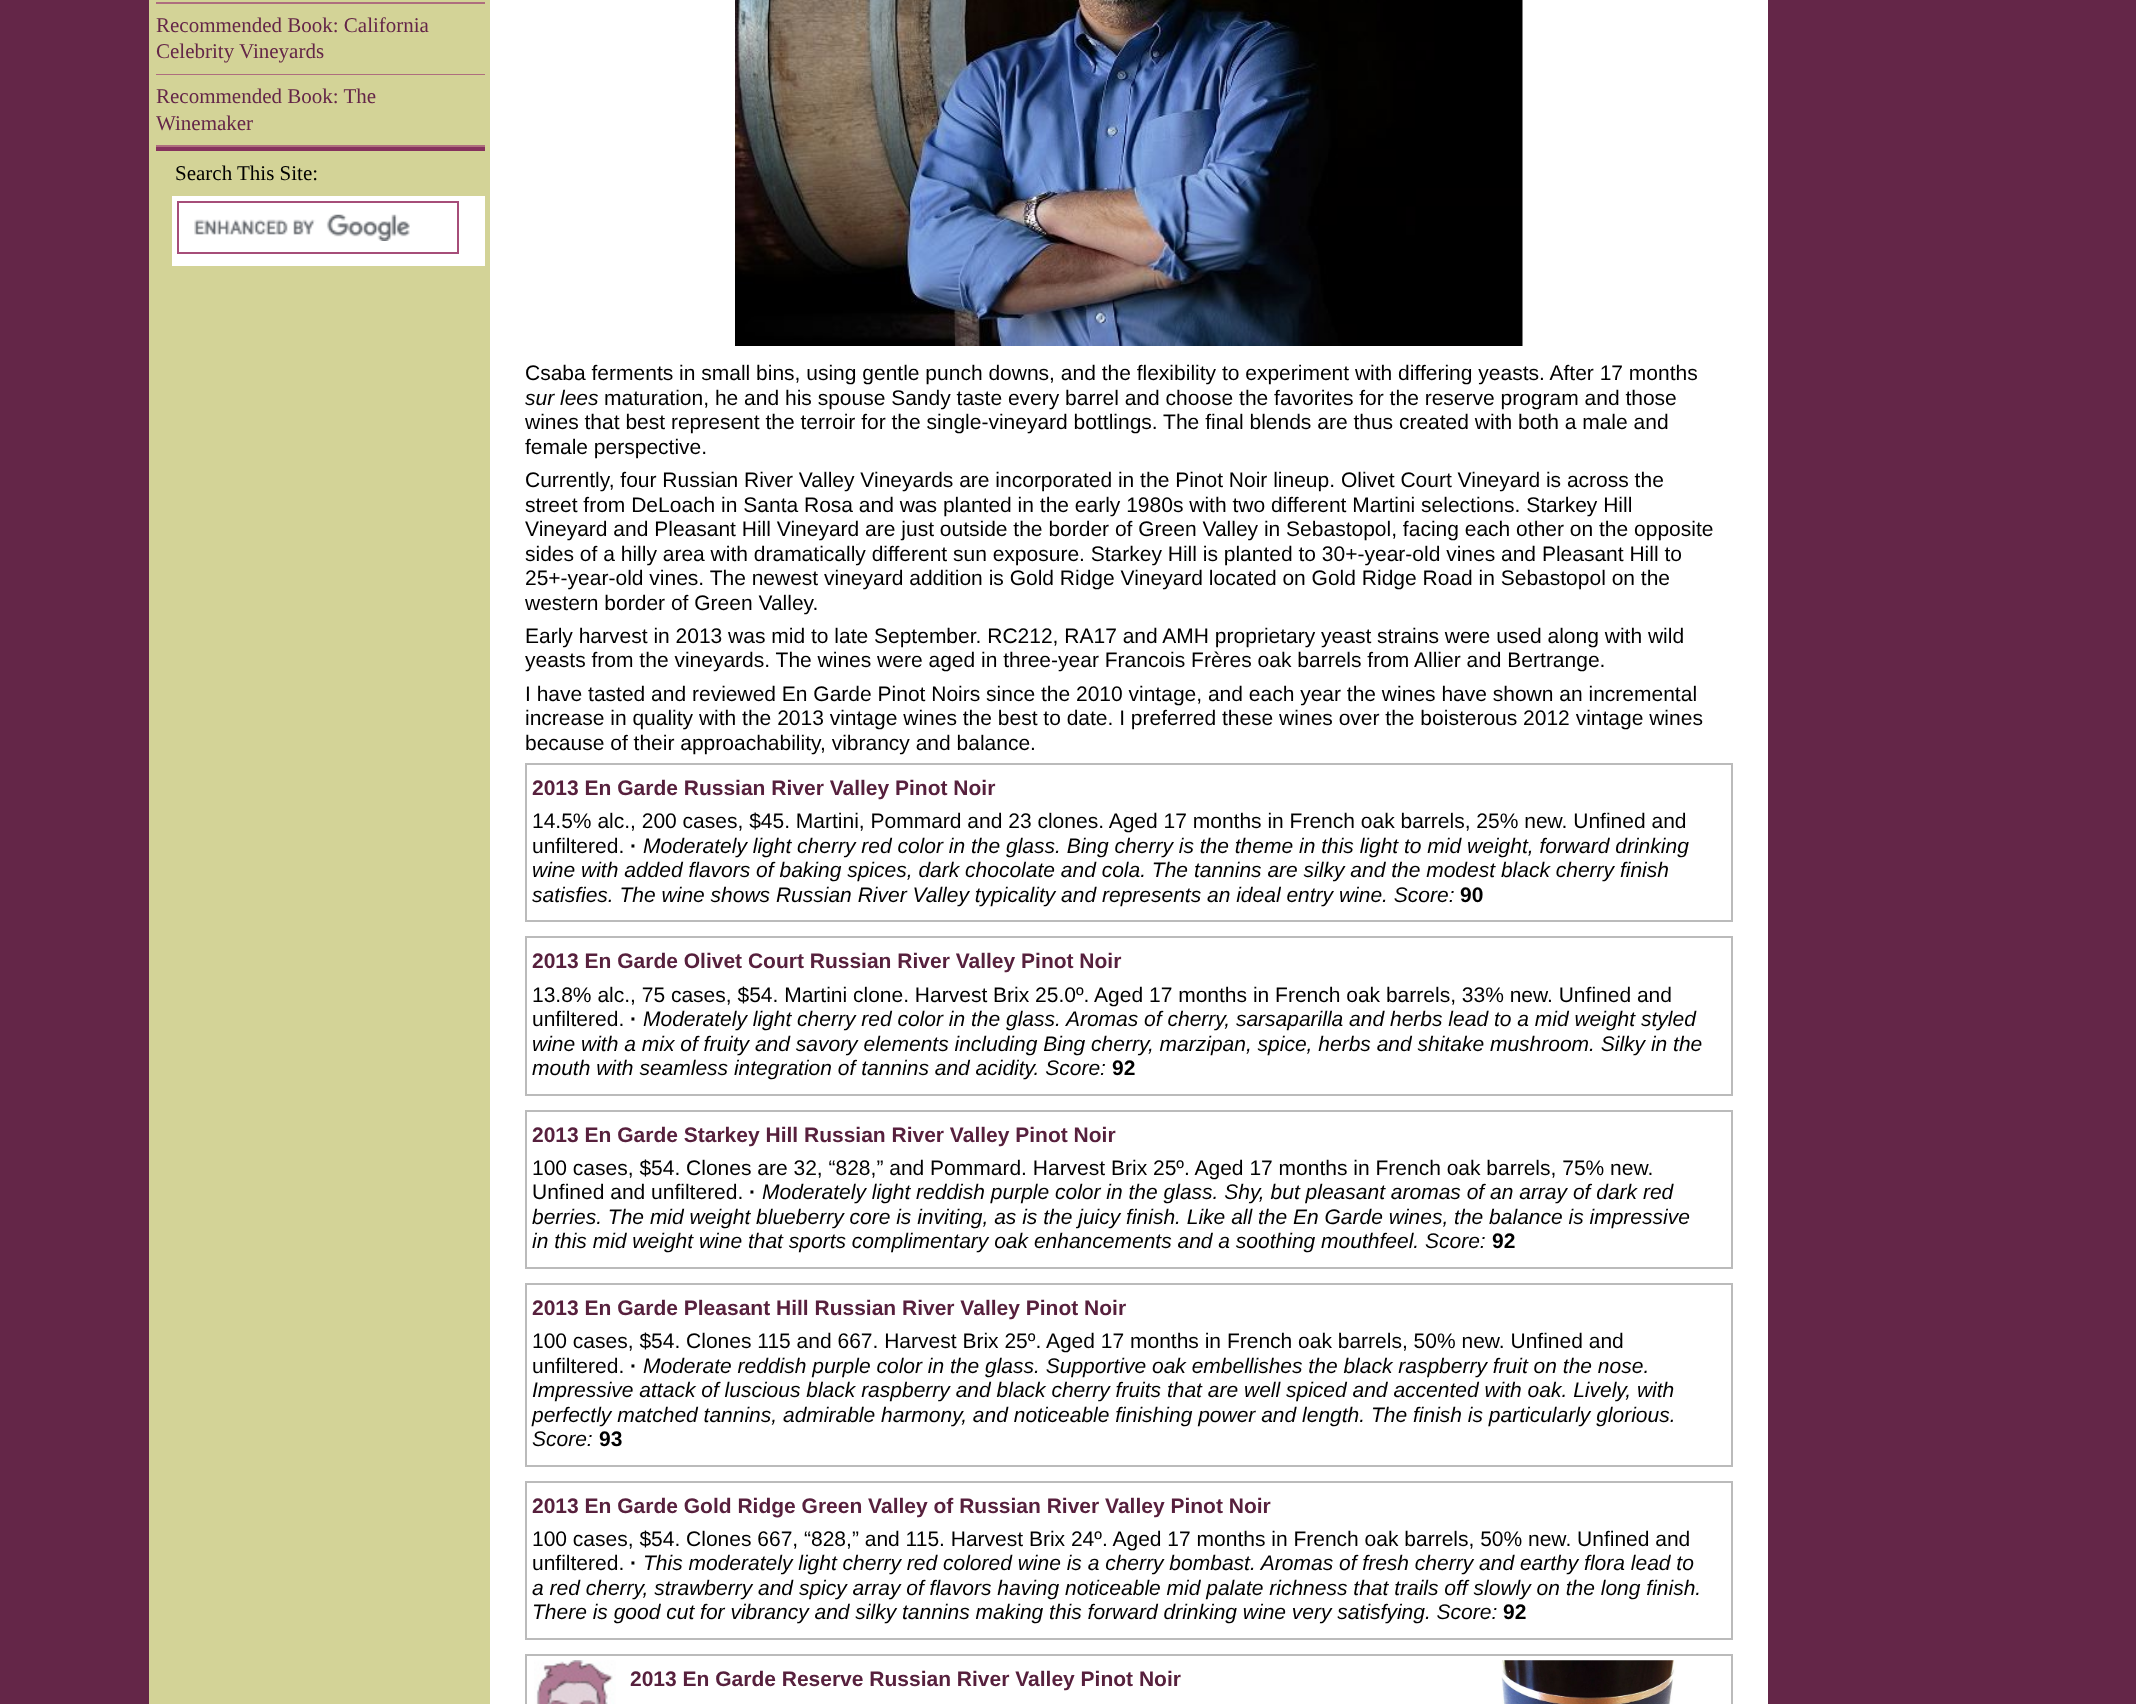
(async () => {
  const canvas = document.querySelector("canvas");
  canvas.width = 2136;
  canvas.height = 1704;
  const ctx = canvas.getContext("2d");
  ctx.miterLimit = 4;
  ctx.fontKerning = "normal";
  async function loadImage(src) {
    const img = new Image();
    img.src = src;
    await img.decode();
    return img;
  }

  ctx.fillStyle = "#642648";
  ctx.fillRect(0, 0, 2136, 1704);
  for (const [x, y, w, h, color] of [
    [149, 0, 341, 1704, "#d3d397"],
    [156, 147, 329, 4, "#85325d"],
    [156, 2, 329, 2, "#ae6e7e"],
    [156, 74, 329, 1, "#ae6e7e"],
    [156, 145, 329, 2, "#ae6e7e"],
    [172, 196, 313, 70, "#ffffff"],
  ]) {
    ctx.fillStyle = color;
    ctx.fillRect(x, y, w, h);
  }
  ctx.strokeStyle = "#a64d79";
  ctx.lineWidth = 2;
  ctx.strokeRect(178, 202, 280, 51);
  ctx.drawImage(await loadImage("img/1.png"), 194, 214, 216, 27);
  ctx.fillRect(490, 0, 1278, 1704);
  ctx.drawImage(await loadImage("img/2.png"), 735, 0, 788, 346);
  ctx.strokeStyle = "#bbbbbb";
  ctx.strokeRect(526, 764, 1206, 157);
  ctx.strokeRect(526, 937, 1206, 158);
  ctx.strokeRect(526, 1111, 1206, 157);
  ctx.strokeRect(526, 1284, 1206, 182);
  ctx.strokeRect(526, 1482, 1206, 157);
  ctx.strokeRect(526, 1655, 1206, 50);
  ctx.drawImage(await loadImage("img/3.png"), 534, 1660, 82, 44);
  ctx.drawImage(await loadImage("img/4.png"), 1501, 1660, 176, 44);
  ctx.font = "21px Liberation Serif";
  ctx.fillStyle = "#642648";
  for (const [text, x, y] of [
    ["Recommended Book: California", 156, 32],
    ["Celebrity Vineyards", 156, 58],
    ["Recommended Book: The", 156, 103],
    ["Winemaker", 156, 130],
  ]) {
    ctx.fillText(text, x, y);
  }
  ctx.fillStyle = "#000000";
  ctx.fillText("Search This Site:", 175, 180);
  ctx.font = "21px Liberation Sans";
  ctx.fillText("Csaba ferments in small bins, using gentle punch downs, and the flexibility to experiment with differing yeasts. After 17 months", 525, 380);
  ctx.font = "italic 21px Liberation Sans";
  ctx.fillText("sur lees", 525, 405);
  ctx.font = "21px Liberation Sans";
  for (const [text, x, y] of [
    ["maturation, he and his spouse Sandy taste every barrel and choose the favorites for the reserve program and those", 604, 405],
    ["wines that best represent the terroir for the single-vineyard bottlings. The final blends are thus created with both a male and", 525, 429],
    ["female perspective.", 525, 454],
    ["Currently, four Russian River Valley Vineyards are incorporated in the Pinot Noir lineup. Olivet Court Vineyard is across the", 525, 487],
    ["street from DeLoach in Santa Rosa and was planted in the early 1980s with two different Martini selections. Starkey Hill", 525, 512],
    ["Vineyard and Pleasant Hill Vineyard are just outside the border of Green Valley in Sebastopol, facing each other on the opposite", 525, 536],
    ["sides of a hilly area with dramatically different sun exposure. Starkey Hill is planted to 30+-year-old vines and Pleasant Hill to", 525, 561],
    ["25+-year-old vines. The newest vineyard addition is Gold Ridge Vineyard located on Gold Ridge Road in Sebastopol on the", 525, 585],
    ["western border of Green Valley.", 525, 610],
    ["Early harvest in 2013 was mid to late September. RC212, RA17 and AMH proprietary yeast strains were used along with wild", 525, 643],
    ["yeasts from the vineyards. The wines were aged in three-year Francois Frères oak barrels from Allier and Bertrange.", 525, 667],
    ["I have tasted and reviewed En Garde Pinot Noirs since the 2010 vintage, and each year the wines have shown an incremental", 525, 701],
    ["increase in quality with the 2013 vintage wines the best to date. I preferred these wines over the boisterous 2012 vintage wines", 525, 725],
    ["because of their approachability, vibrancy and balance.", 525, 750],
  ]) {
    ctx.fillText(text, x, y);
  }
  ctx.font = "bold 21px Liberation Sans";
  ctx.fillStyle = "#57203d";
  ctx.fillText("2013 En Garde Russian River Valley Pinot Noir", 532, 795);
  ctx.font = "21px Liberation Sans";
  ctx.fillStyle = "#000000";
  ctx.fillText("14.5% alc., 200 cases, $45. Martini, Pommard and 23 clones. Aged 17 months in French oak barrels, 25% new. Unfined and", 532, 828);
  ctx.fillText("unfiltered.", 532, 853);
  ctx.font = "bold 21px Liberation Sans";
  ctx.fillText("·", 630, 853);
  ctx.font = "italic 21px Liberation Sans";
  for (const [text, x, y] of [
    ["Moderately light cherry red color in the glass. Bing cherry is the theme in this light to mid weight, forward drinking", 643, 853],
    ["wine with added flavors of baking spices, dark chocolate and cola. The tannins are silky and the modest black cherry finish", 532, 877],
    ["satisfies. The wine shows Russian River Valley typicality and represents an ideal entry wine. Score:", 532, 902],
  ]) {
    ctx.fillText(text, x, y);
  }
  ctx.font = "bold 21px Liberation Sans";
  ctx.fillText("90", 1460, 902);
  ctx.fillStyle = "#57203d";
  ctx.fillText("2013 En Garde Olivet Court Russian River Valley Pinot Noir", 532, 968);
  ctx.font = "21px Liberation Sans";
  ctx.fillStyle = "#000000";
  ctx.fillText("13.8% alc., 75 cases, $54. Martini clone. Harvest Brix 25.0º. Aged 17 months in French oak barrels, 33% new. Unfined and", 532, 1002);
  ctx.fillText("unfiltered.", 532, 1026);
  ctx.font = "bold 21px Liberation Sans";
  ctx.fillText("·", 630, 1026);
  ctx.font = "italic 21px Liberation Sans";
  for (const [text, x, y] of [
    ["Moderately light cherry red color in the glass. Aromas of cherry, sarsaparilla and herbs lead to a mid weight styled", 643, 1026],
    ["wine with a mix of fruity and savory elements including Bing cherry, marzipan, spice, herbs and shitake mushroom. Silky in the", 532, 1051],
    ["mouth with seamless integration of tannins and acidity. Score:", 532, 1075],
  ]) {
    ctx.fillText(text, x, y);
  }
  ctx.font = "bold 21px Liberation Sans";
  ctx.fillText("92", 1112, 1075);
  ctx.fillStyle = "#57203d";
  ctx.fillText("2013 En Garde Starkey Hill Russian River Valley Pinot Noir", 532, 1142);
  ctx.font = "21px Liberation Sans";
  ctx.fillStyle = "#000000";
  ctx.fillText("100 cases, $54. Clones are 32, “828,” and Pommard. Harvest Brix 25º. Aged 17 months in French oak barrels, 75% new.", 532, 1175);
  ctx.fillText("Unfined and unfiltered.", 532, 1199);
  ctx.font = "bold 21px Liberation Sans";
  ctx.fillText("·", 749, 1199);
  ctx.font = "italic 21px Liberation Sans";
  for (const [text, x, y] of [
    ["Moderately light reddish purple color in the glass. Shy, but pleasant aromas of an array of dark red", 762, 1199],
    ["berries. The mid weight blueberry core is inviting, as is the juicy finish. Like all the En Garde wines, the balance is impressive", 532, 1224],
    ["in this mid weight wine that sports complimentary oak enhancements and a soothing mouthfeel. Score:", 532, 1248],
  ]) {
    ctx.fillText(text, x, y);
  }
  ctx.font = "bold 21px Liberation Sans";
  ctx.fillText("92", 1492, 1248);
  ctx.fillStyle = "#57203d";
  ctx.fillText("2013 En Garde Pleasant Hill Russian River Valley Pinot Noir", 532, 1315);
  ctx.font = "21px Liberation Sans";
  ctx.fillStyle = "#000000";
  ctx.fillText("100 cases, $54. Clones 115 and 667. Harvest Brix 25º. Aged 17 months in French oak barrels, 50% new. Unfined and", 532, 1348);
  ctx.fillText("unfiltered.", 532, 1373);
  ctx.font = "bold 21px Liberation Sans";
  ctx.fillText("·", 630, 1373);
  ctx.font = "italic 21px Liberation Sans";
  for (const [text, x, y] of [
    ["Moderate reddish purple color in the glass. Supportive oak embellishes the black raspberry fruit on the nose.", 643, 1373],
    ["Impressive attack of luscious black raspberry and black cherry fruits that are well spiced and accented with oak. Lively, with", 532, 1397],
    ["perfectly matched tannins, admirable harmony, and noticeable finishing power and length. The finish is particularly glorious.", 532, 1422],
    ["Score:", 532, 1446],
  ]) {
    ctx.fillText(text, x, y);
  }
  ctx.font = "bold 21px Liberation Sans";
  ctx.fillText("93", 599, 1446);
  ctx.fillStyle = "#57203d";
  ctx.fillText("2013 En Garde Gold Ridge Green Valley of Russian River Valley Pinot Noir", 532, 1513);
  ctx.font = "21px Liberation Sans";
  ctx.fillStyle = "#000000";
  ctx.fillText("100 cases, $54. Clones 667, “828,” and 115. Harvest Brix 24º. Aged 17 months in French oak barrels, 50% new. Unfined and", 532, 1546);
  ctx.fillText("unfiltered.", 532, 1570);
  ctx.font = "bold 21px Liberation Sans";
  ctx.fillText("·", 630, 1570);
  ctx.font = "italic 21px Liberation Sans";
  for (const [text, x, y] of [
    ["This moderately light cherry red colored wine is a cherry bombast. Aromas of fresh cherry and earthy flora lead to", 643, 1570],
    ["a red cherry, strawberry and spicy array of flavors having noticeable mid palate richness that trails off slowly on the long finish.", 532, 1595],
    ["There is good cut for vibrancy and silky tannins making this forward drinking wine very satisfying. Score:", 532, 1619],
  ]) {
    ctx.fillText(text, x, y);
  }
  ctx.font = "bold 21px Liberation Sans";
  ctx.fillText("92", 1503, 1619);
  ctx.fillStyle = "#57203d";
  ctx.fillText("2013 En Garde Reserve Russian River Valley Pinot Noir", 630, 1686);
})();
